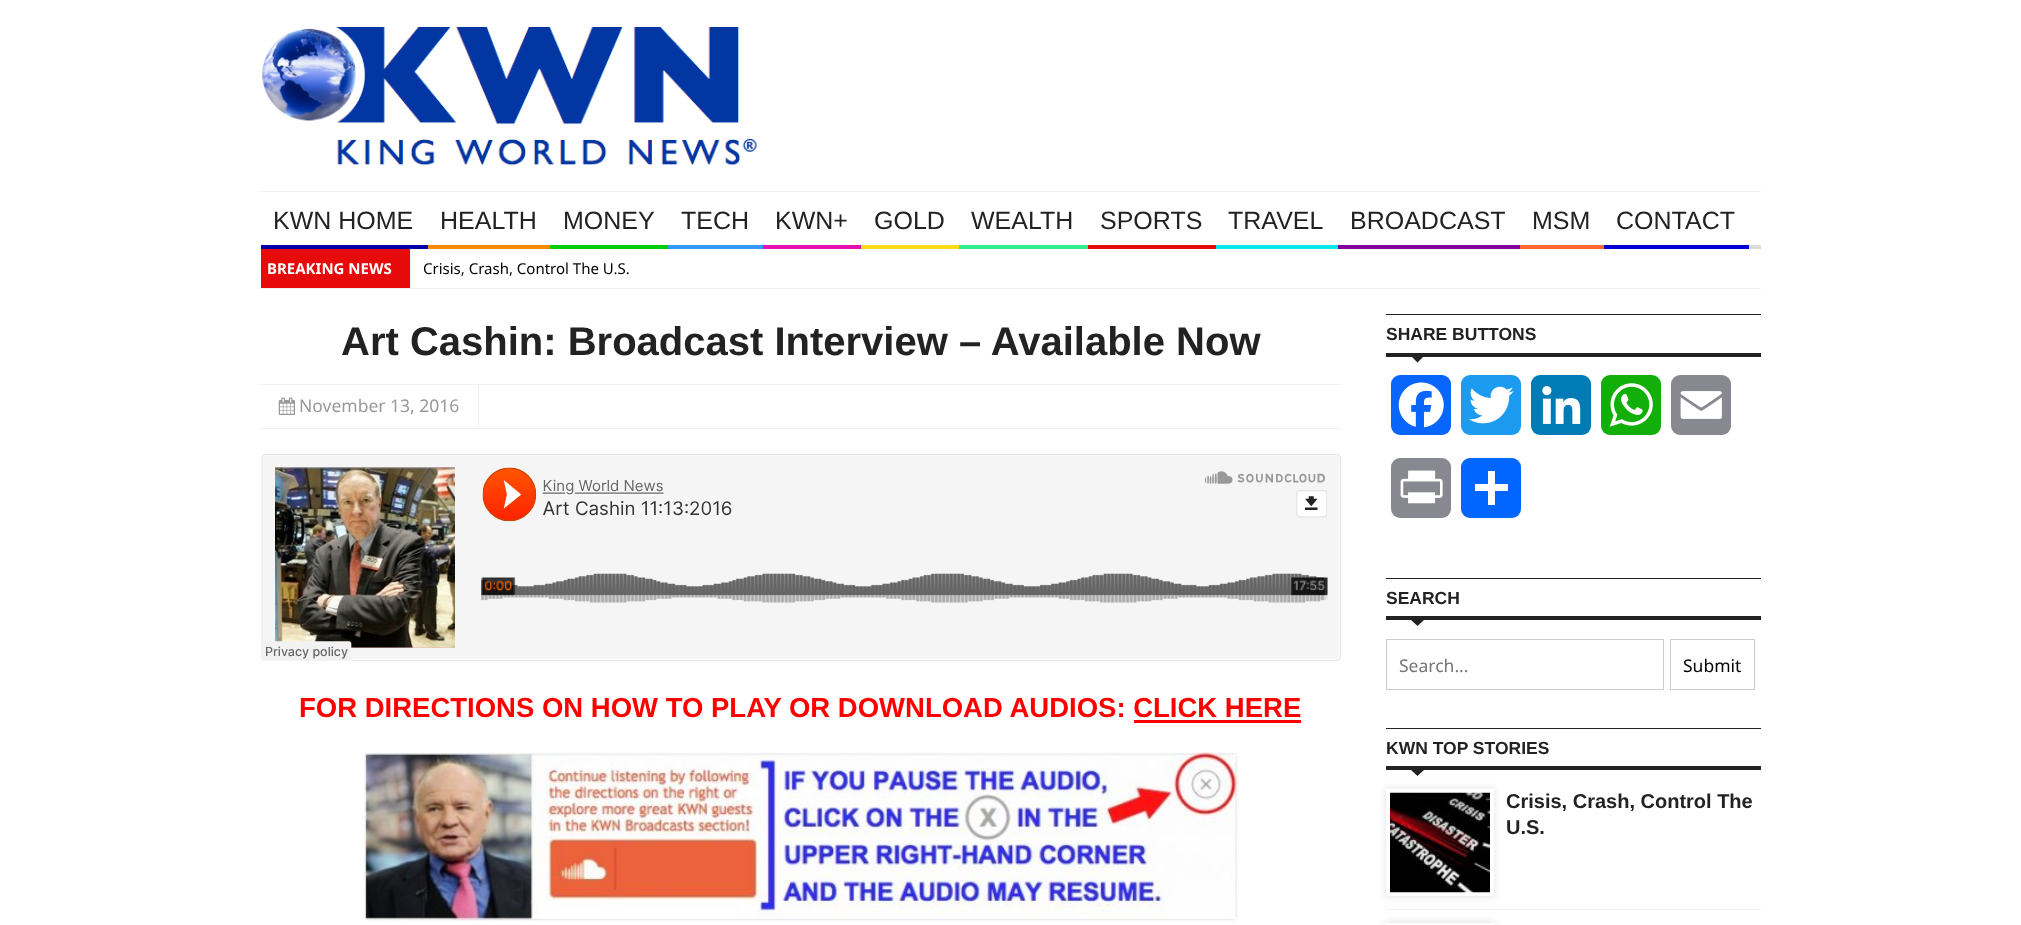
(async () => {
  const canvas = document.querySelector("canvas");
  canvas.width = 2021;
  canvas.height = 925;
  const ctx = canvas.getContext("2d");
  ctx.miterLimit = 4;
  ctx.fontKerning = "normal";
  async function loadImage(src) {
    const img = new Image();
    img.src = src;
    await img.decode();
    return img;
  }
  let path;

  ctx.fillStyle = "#ffffff";
  ctx.fillRect(0, 0, 2021, 925);
  ctx.drawImage(await loadImage("img/1.png"), 262, 27, 495, 139);
  for (const [x, y, w, h, color] of [
    [261, 191, 1500, 1, "#f0f0f0"],
    [1749, 245, 12, 4, "#dddddd"],
    [261, 245, 167, 4, "#0000a6"],
    [428, 245, 122, 4, "#ff8800"],
    [550, 245, 118, 4, "#00cc00"],
    [668, 245, 95, 4, "#3399ff"],
    [763, 245, 98, 4, "#e411af"],
    [861, 245, 98, 4, "#ffdc14"],
    [959, 245, 129, 4, "#30ed8f"],
    [1088, 245, 128, 4, "#e60a0a"],
    [1216, 245, 122, 4, "#07e8e9"],
    [1338, 245, 182, 4, "#820099"],
    [1520, 245, 84, 4, "#ff6633"],
    [1604, 245, 145, 4, "#0000d6"],
    [261, 288, 1500, 1, "#f0f0f0"],
    [261, 249, 149, 39, "#e60a0a"],
    [410, 249, 1, 39, "#f0f0f0"],
    [261, 384, 1080, 1, "#f0f0f0"],
    [261, 428, 1080, 1, "#f0f0f0"],
    [478, 385, 1, 43, "#f0f0f0"],
  ]) {
    ctx.fillStyle = color;
    ctx.fillRect(x, y, w, h);
  }
  ctx.drawImage(await loadImage("img/2.png"), 278, 397, 17, 18);
  ctx.drawImage(await loadImage("img/3.png"), 261, 454, 1080, 207);
  ctx.fillStyle = "#ff0000";
  ctx.fillRect(1134, 720, 167, 3);
  ctx.drawImage(await loadImage("img/4.png"), 364, 752, 875, 169);
  ctx.fillStyle = "#222222";
  ctx.fillRect(1386, 314, 375, 1);
  ctx.fillRect(1386, 353, 375, 4);
  path = new Path2D("M1411 356H1424L1417.5 362.5Z");
  ctx.fill(path);
  ctx.fillStyle = "#0866ff";
  ctx.beginPath();
  ctx.roundRect(1391, 375, 60, 60, 9);
  ctx.fill();
  ctx.drawImage(await loadImage("img/5.png"), 1398, 382, 46, 46);
  ctx.fillStyle = "#1d9bf0";
  ctx.beginPath();
  ctx.roundRect(1461, 375, 60, 60, 9);
  ctx.fill();
  ctx.drawImage(await loadImage("img/6.png"), 1469, 386, 45, 38);
  ctx.fillStyle = "#007bb5";
  ctx.beginPath();
  ctx.roundRect(1531, 375, 60, 60, 9);
  ctx.fill();
  ctx.drawImage(await loadImage("img/7.png"), 1542, 386, 39, 38);
  ctx.fillStyle = "#12af0a";
  ctx.beginPath();
  ctx.roundRect(1601, 375, 60, 60, 9);
  ctx.fill();
  ctx.drawImage(await loadImage("img/8.png"), 1609, 383, 44, 44);
  ctx.fillStyle = "#888990";
  ctx.beginPath();
  ctx.roundRect(1671, 375, 60, 60, 9);
  ctx.fill();
  ctx.drawImage(await loadImage("img/9.png"), 1680, 391, 42, 28);
  ctx.beginPath();
  ctx.roundRect(1391, 458, 60, 60, 9);
  ctx.fill();
  ctx.drawImage(await loadImage("img/10.png"), 1400, 470, 43, 34);
  ctx.fillStyle = "#0166ff";
  ctx.beginPath();
  ctx.roundRect(1461, 458, 60, 60, 9);
  ctx.fill();
  for (const [x, y, w, h, color] of [
    [1488, 471, 7, 34, "#ffffff"],
    [1475, 484, 33, 7, "#ffffff"],
    [1386, 578, 375, 1, "#222222"],
    [1386, 616, 375, 4, "#222222"],
  ]) {
    ctx.fillStyle = color;
    ctx.fillRect(x, y, w, h);
  }
  path = new Path2D("M1411 620H1424L1417.5 626Z");
  ctx.fill(path);
  ctx.strokeStyle = "#cccccc";
  ctx.strokeRect(1386.5, 639.5, 277, 50);
  ctx.strokeRect(1670.5, 639.5, 84, 50);
  ctx.fillRect(1386, 728, 375, 1);
  ctx.fillRect(1386, 766, 375, 4);
  path = new Path2D("M1411 770H1424L1417.5 776Z");
  ctx.fill(path);
  ctx.fillStyle = "#f0f0f0";
  ctx.fillRect(1386, 909, 375, 1);
  ctx.fillStyle = "rgba(34, 34, 34, 0.1)";
  ctx.filter = "blur(3px)";
  ctx.beginPath();
  ctx.rect(1385, 788, 110, 110);
  ctx.fill();
  ctx.filter = "none";
  ctx.strokeStyle = "#ffffff";
  ctx.lineWidth = 4;
  ctx.strokeRect(1388, 791, 104, 103);
  ctx.drawImage(await loadImage("img/11.png"), 1390, 792, 100, 101);
  ctx.filter = "blur(3px)";
  ctx.beginPath();
  ctx.rect(1385, 921, 110, 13);
  ctx.fill();
  ctx.filter = "none";
  ctx.strokeRect(1388, 925, 104, 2);
  ctx.font = "25px Liberation Sans";
  ctx.fillStyle = "#222222";
  for (const [text, x, y] of [
    ["KWN HOME", 273, 229],
    ["HEALTH", 440, 229],
    ["MONEY", 563, 229],
    ["TECH", 681, 229],
    ["KWN+", 775, 229],
    ["GOLD", 874, 229],
    ["WEALTH", 971, 229],
    ["SPORTS", 1100, 229],
    ["TRAVEL", 1228, 229],
    ["BROADCAST", 1350, 229],
    ["MSM", 1532, 229],
    ["CONTACT", 1616, 229],
  ]) {
    ctx.fillText(text, x, y);
  }
  ctx.font = "bold 15px Noto Sans";
  ctx.fillStyle = "#ffffff";
  ctx.fillText("BREAKING NEWS", 267, 274);
  ctx.font = "15px Noto Sans";
  ctx.fillStyle = "#000000";
  ctx.fillText("Crisis, Crash, Control The U.S.", 423, 274);
  ctx.font = "bold 40px Liberation Sans";
  ctx.fillStyle = "#222222";
  ctx.fillText("Art Cashin: Broadcast Interview – Available Now", 341, 355);
  ctx.font = "17.5px Noto Sans";
  ctx.fillStyle = "#999999";
  ctx.fillText("November 13, 2016", 299, 412);
  ctx.font = "bold 27.5px Liberation Sans";
  ctx.fillStyle = "#ff0000";
  ctx.fillText("FOR DIRECTIONS ON HOW TO PLAY OR DOWNLOAD AUDIOS: CLICK HERE", 299, 717);
  ctx.font = "bold 17.5px Liberation Sans";
  ctx.fillStyle = "#222222";
  ctx.fillText("SHARE BUTTONS", 1386, 340);
  ctx.fillText("SEARCH", 1386, 604);
  ctx.font = "17.5px Noto Sans";
  ctx.fillStyle = "#757575";
  ctx.fillText("Search...", 1399, 672);
  ctx.fillStyle = "#000000";
  ctx.fillText("Submit", 1683, 672);
  ctx.font = "bold 17.5px Liberation Sans";
  ctx.fillStyle = "#222222";
  ctx.fillText("KWN TOP STORIES", 1386, 754);
  ctx.font = "bold 20px Liberation Sans";
  ctx.fillText("Crisis, Crash, Control The", 1506, 808);
  ctx.fillText("U.S.", 1506, 834);
})();
